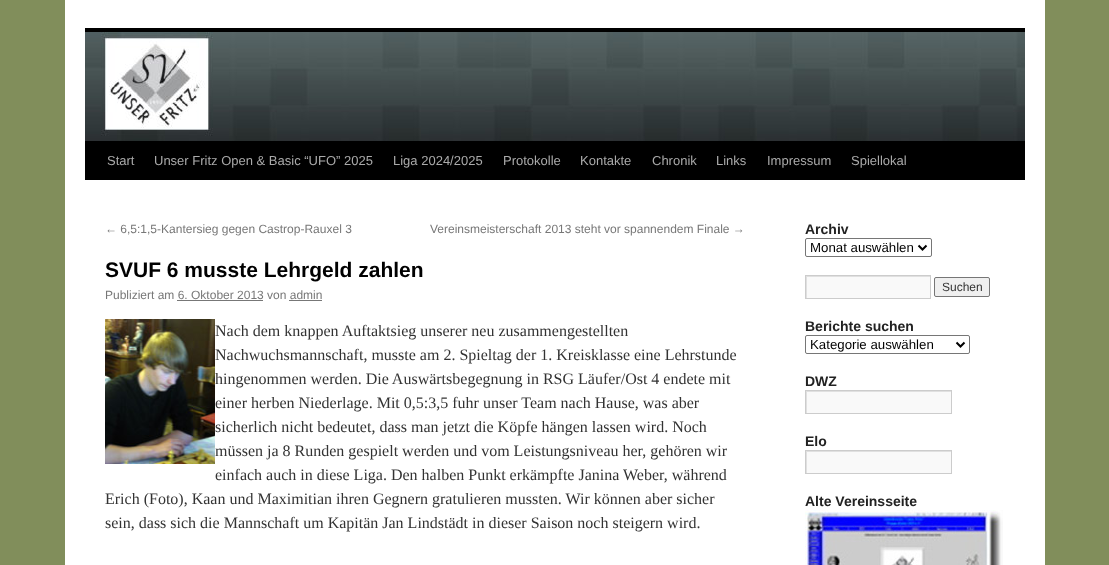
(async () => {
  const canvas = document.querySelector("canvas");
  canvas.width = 1109;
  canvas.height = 565;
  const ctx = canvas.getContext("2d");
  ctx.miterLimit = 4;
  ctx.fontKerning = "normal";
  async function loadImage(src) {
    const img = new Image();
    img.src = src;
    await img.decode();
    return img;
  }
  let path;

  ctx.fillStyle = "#818e5b";
  ctx.fillRect(0, 0, 1109, 565);
  for (const [x, y, w, h, color] of [
    [65, 0, 980, 565, "#ffffff"],
    [85, 28, 940, 4, "#000000"],
    [85, 141, 940, 39, "#000000"],
  ]) {
    ctx.fillStyle = color;
    ctx.fillRect(x, y, w, h);
  }
  ctx.drawImage(await loadImage("img/1.png"), 85, 32, 940, 109);
  ctx.fillStyle = "#777777";
  ctx.fillRect(177, 300, 86, 1);
  ctx.fillRect(289, 300, 33, 1);
  ctx.drawImage(await loadImage("img/2.png"), 105, 319, 110, 145);
  ctx.beginPath();
  ctx.roundRect(805.5, 238.5, 126, 18, 1.5);
  ctx.strokeStyle = "#767676";
  ctx.stroke();
  path = new Path2D("M918.5 245.5L922.5 249.5L926.5 245.5");
  ctx.strokeStyle = "#000000";
  ctx.lineWidth = 2;
  ctx.stroke(path);
  ctx.fillStyle = "#f9f9f9";
  ctx.fillRect(807, 277, 123, 21);
  ctx.save();
  ctx.beginPath();
  ctx.rect(806, 276, 124, 22);
  ctx.clip();
  ctx.fillStyle = "#e0e0e0";
  path = new Path2D("M707 177H1029V397H707ZM807 277H931V299H807Z");
  ctx.fill(path, "evenodd");
  ctx.restore();
  ctx.strokeStyle = "#cccccc";
  ctx.lineWidth = 1;
  ctx.strokeRect(805.5, 275.5, 125, 23);
  ctx.fillStyle = "#efefef";
  ctx.beginPath();
  ctx.roundRect(934.5, 277.5, 55, 19, 1.5);
  ctx.fill();
  ctx.strokeStyle = "#767676";
  ctx.stroke();
  ctx.beginPath();
  ctx.roundRect(805.5, 335.5, 164, 18, 1.5);
  ctx.stroke();
  path = new Path2D("M956.5 342.5L960.5 346.5L964.5 342.5");
  ctx.strokeStyle = "#000000";
  ctx.lineWidth = 2;
  ctx.stroke(path);
  ctx.fillStyle = "#f9f9f9";
  ctx.fillRect(807, 392, 144, 21);
  ctx.save();
  ctx.beginPath();
  ctx.rect(806, 391, 145, 22);
  ctx.clip();
  ctx.fillStyle = "#e0e0e0";
  path = new Path2D("M707 292H1050V512H707ZM807 392H952V414H807Z");
  ctx.fill(path, "evenodd");
  ctx.restore();
  ctx.strokeStyle = "#cccccc";
  ctx.lineWidth = 1;
  ctx.strokeRect(805.5, 390.5, 146, 23);
  ctx.fillRect(807, 452, 144, 21);
  ctx.save();
  ctx.beginPath();
  ctx.rect(806, 451, 145, 22);
  ctx.clip();
  ctx.fillStyle = "#e0e0e0";
  path = new Path2D("M707 352H1050V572H707ZM807 452H952V474H807Z");
  ctx.fill(path, "evenodd");
  ctx.restore();
  ctx.strokeRect(805.5, 450.5, 146, 23);
  ctx.drawImage(await loadImage("img/3.png"), 805, 510, 198, 55);
  ctx.font = "13px Liberation Sans";
  ctx.fillStyle = "#aaaaaa";
  for (const [text, x, y] of [
    ["Start", 107, 165],
    ["Unser Fritz Open & Basic “UFO” 2025", 154, 165],
    ["Liga 2024/2025", 393, 165],
    ["Protokolle", 503, 165],
    ["Kontakte", 580, 165],
    ["Chronik", 652, 165],
    ["Links", 716, 165],
    ["Impressum", 767, 165],
    ["Spiellokal", 851, 165],
  ]) {
    ctx.fillText(text, x, y);
  }
  ctx.font = "12px Liberation Sans";
  ctx.fillStyle = "#777777";
  ctx.fillText("← 6,5:1,5-Kantersieg gegen Castrop-Rauxel 3", 105, 233);
  ctx.fillText("Vereinsmeisterschaft 2013 steht vor spannendem Finale →", 430, 233);
  ctx.font = "bold 21px Liberation Sans";
  ctx.fillStyle = "#000000";
  ctx.fillText("SVUF 6 musste Lehrgeld zahlen", 105, 277);
  ctx.font = "12px Liberation Sans";
  ctx.fillStyle = "#777777";
  ctx.fillText("Publiziert am 6. Oktober 2013 von admin", 105, 299);
  ctx.font = "16px Liberation Serif";
  ctx.fillStyle = "#333333";
  for (const [text, x, y] of [
    ["Nach dem knappen Auftaktsieg unserer neu zusammengestellten", 215, 336],
    ["Nachwuchsmannschaft, musste am 2. Spieltag der 1. Kreisklasse eine Lehrstunde", 215, 360],
    ["hingenommen werden. Die Auswärtsbegegnung in RSG Läufer/Ost 4 endete mit", 215, 384],
    ["einer herben Niederlage. Mit 0,5:3,5 fuhr unser Team nach Hause, was aber", 215, 408],
    ["sicherlich nicht bedeutet, dass man jetzt die Köpfe hängen lassen wird. Noch", 215, 432],
    ["müssen ja 8 Runden gespielt werden und vom Leistungsniveau her, gehören wir", 215, 456],
    ["einfach auch in diese Liga. Den halben Punkt erkämpfte Janina Weber, während", 215, 480],
    ["Erich (Foto), Kaan und Maximitian ihren Gegnern gratulieren mussten. Wir können aber sicher", 105, 504],
    ["sein, dass sich die Mannschaft um Kapitän Jan Lindstädt in dieser Saison noch steigern wird.", 105, 528],
  ]) {
    ctx.fillText(text, x, y);
  }
  ctx.font = "bold 14px Liberation Sans";
  ctx.fillStyle = "#222222";
  ctx.fillText("Archiv", 805, 234);
  ctx.font = "13.25px Liberation Sans";
  ctx.fillStyle = "#000000";
  ctx.fillText("Monat auswählen", 810, 252);
  ctx.font = "12px Liberation Sans";
  ctx.fillStyle = "#333333";
  ctx.fillText("Suchen", 942, 291);
  ctx.font = "bold 14px Liberation Sans";
  ctx.fillStyle = "#222222";
  ctx.fillText("Berichte suchen", 805, 331);
  ctx.font = "13.25px Liberation Sans";
  ctx.fillStyle = "#000000";
  ctx.fillText("Kategorie auswählen", 810, 349);
  ctx.font = "bold 14px Liberation Sans";
  ctx.fillStyle = "#222222";
  for (const [text, x, y] of [
    ["DWZ", 805, 386],
    ["Elo", 805, 446],
    ["Alte Vereinsseite", 805, 506],
  ]) {
    ctx.fillText(text, x, y);
  }
})();
